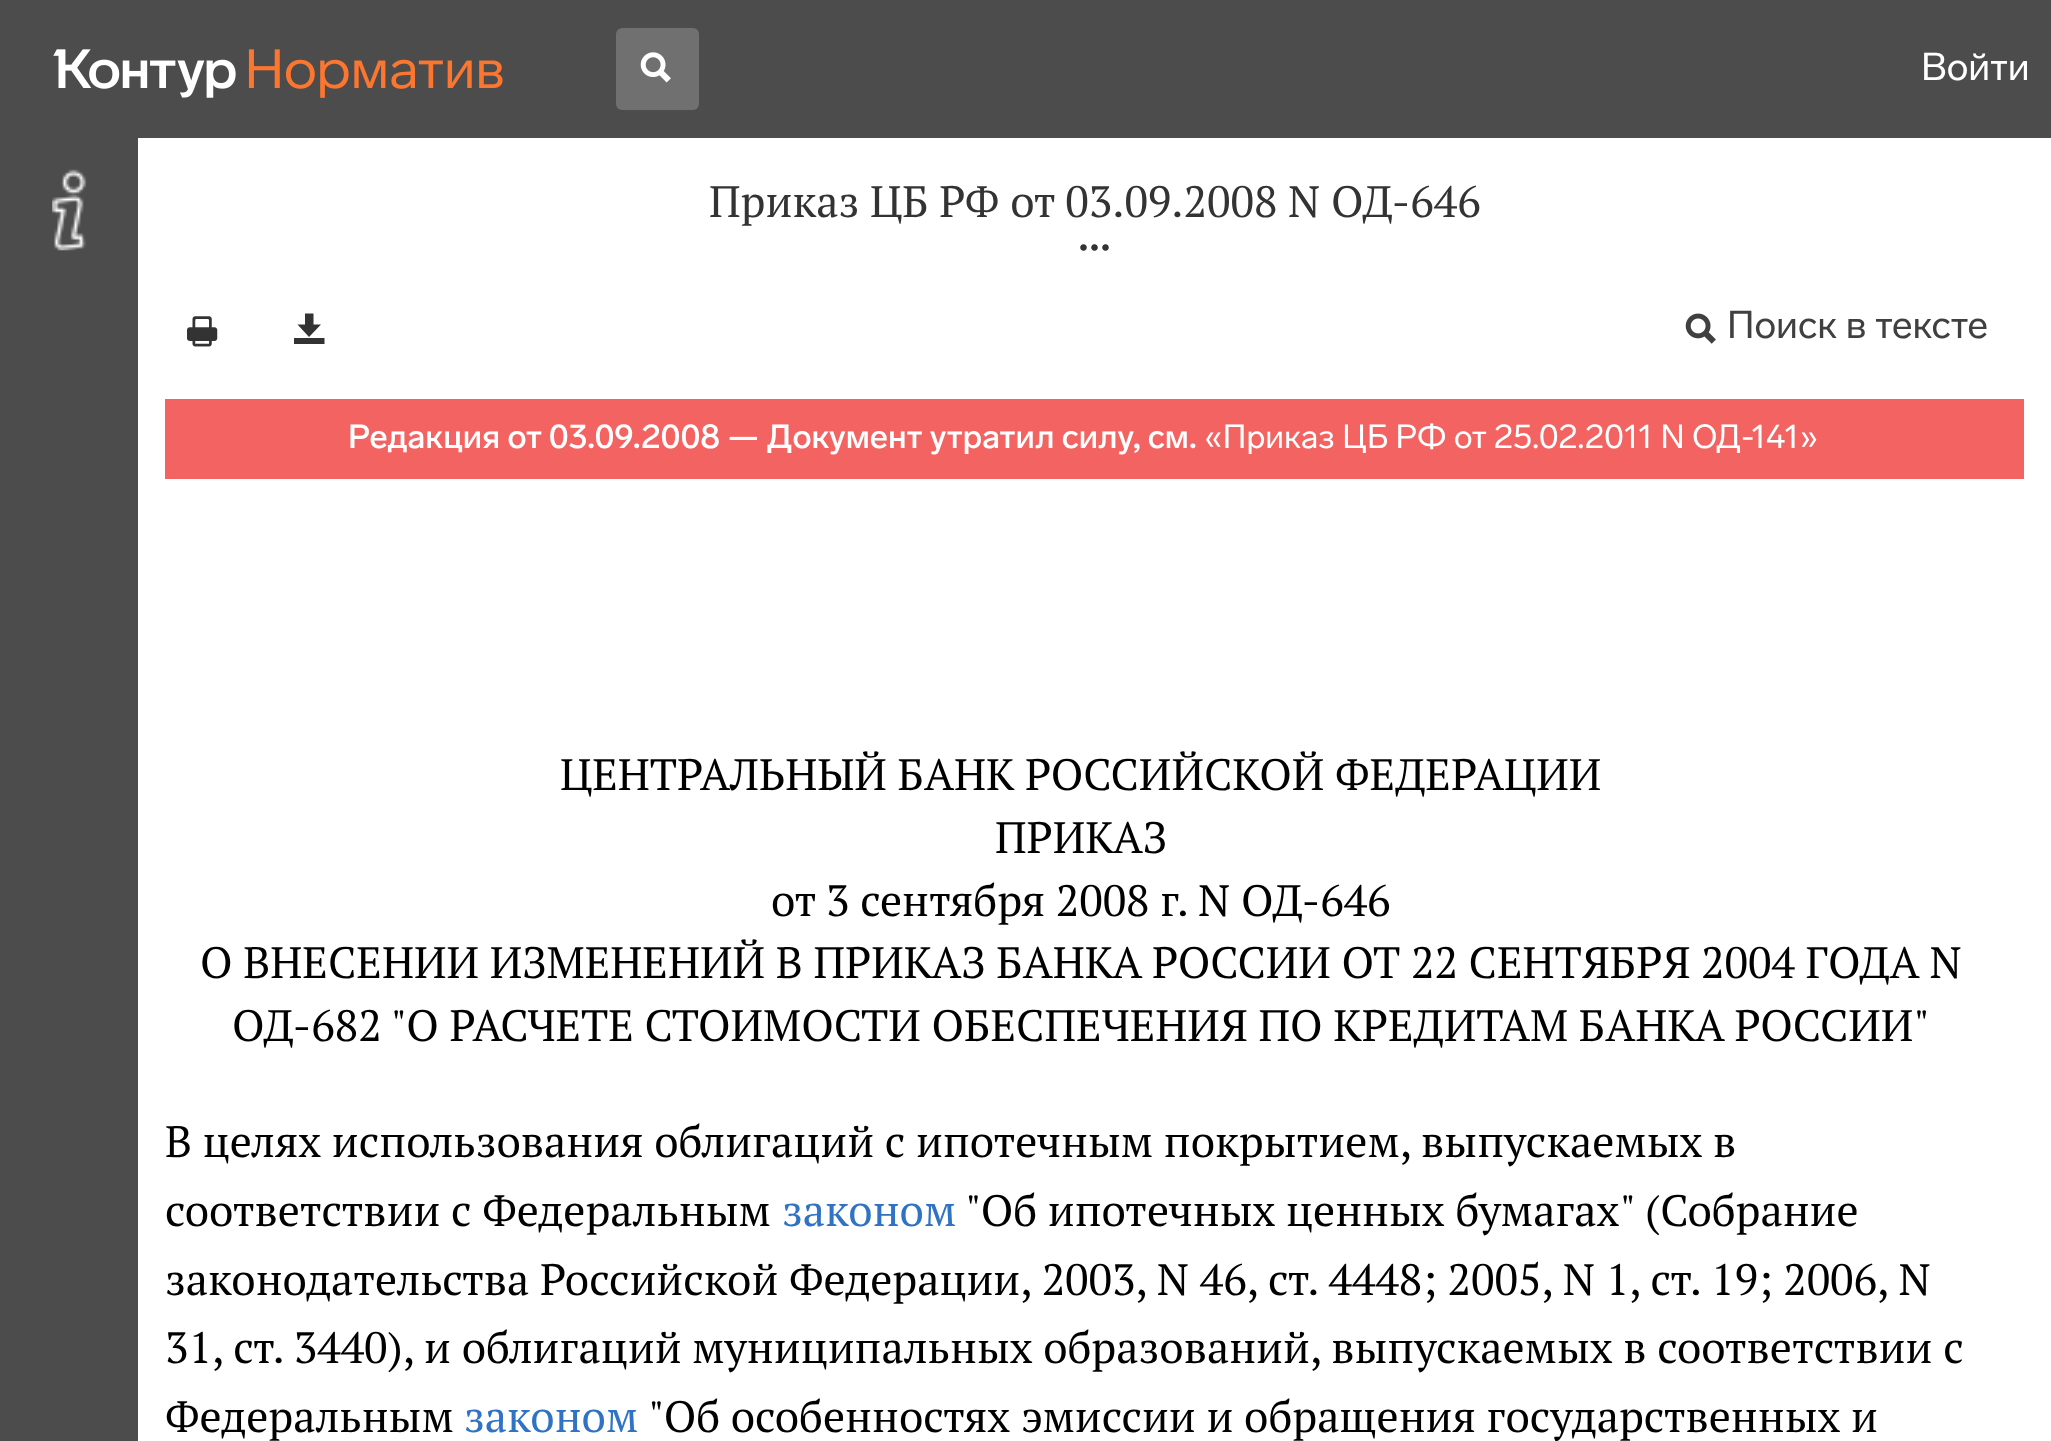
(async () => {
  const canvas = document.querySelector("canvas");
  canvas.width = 2051;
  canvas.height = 1441;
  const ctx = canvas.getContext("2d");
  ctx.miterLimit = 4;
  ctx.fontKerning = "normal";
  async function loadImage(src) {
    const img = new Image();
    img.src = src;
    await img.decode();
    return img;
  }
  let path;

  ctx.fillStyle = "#ffffff";
  ctx.fillRect(0, 0, 2051, 1441);
  ctx.fillStyle = "#4c4c4c";
  ctx.fillRect(0, 0, 2051, 138);
  ctx.drawImage(await loadImage("img/1.png"), 53, 49, 183, 49);
  ctx.drawImage(await loadImage("img/2.png"), 248, 49, 255, 49);
  ctx.fillStyle = "#707070";
  ctx.beginPath();
  ctx.roundRect(616, 28, 83, 82, 6);
  ctx.fill();
  ctx.drawImage(await loadImage("img/3.png"), 640, 52, 31, 31);
  ctx.fillStyle = "#4c4c4c";
  ctx.fillRect(0, 138, 138, 1303);
  ctx.drawImage(await loadImage("img/4.png"), 52, 169, 35, 82);
  ctx.drawImage(await loadImage("img/5.png"), 1080, 244, 29, 7);
  ctx.drawImage(await loadImage("img/6.png"), 187, 316, 31, 31);
  ctx.fillStyle = "#333333";
  path = new Path2D("M324.5 344H294V338H324.5ZM305 324.5V313.5H313.5V324.5H321L309 337L297.5 324.5Z");
  ctx.fill(path);
  ctx.drawImage(await loadImage("img/7.png"), 1685, 313, 31, 31);
  ctx.fillStyle = "#f26361";
  ctx.fillRect(165, 399, 1859, 80);
  ctx.font = "38.5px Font";
  ctx.fillStyle = "#ffffff";
  ctx.fillText("Войти", 1921, 80);
  ctx.font = "44px PT Serif";
  ctx.fillStyle = "#333333";
  ctx.fillText("Приказ ЦБ РФ от 03.09.2008 N ОД-646", 709, 217);
  ctx.font = "38.5px Font";
  ctx.fillStyle = "#404040";
  ctx.fillText("Поиск в тексте", 1727, 338);
  ctx.font = "500 33px Font";
  ctx.fillStyle = "#ffffff";
  ctx.fillText("Редакция от 03.09.2008 — Документ утратил силу, см.", 348, 448);
  ctx.font = "33px Font";
  ctx.fillText("«Приказ ЦБ РФ от 25.02.2011 N ОД-141»", 1204, 448);
  ctx.font = "44px PT Serif";
  ctx.fillStyle = "#000000";
  for (const [text, x, y] of [
    ["ЦЕНТРАЛЬНЫЙ БАНК РОССИЙСКОЙ ФЕДЕРАЦИИ", 560, 790],
    ["ПРИКАЗ", 995, 853],
    ["от 3 сентября 2008 г. N ОД-646", 771, 916],
    ["О ВНЕСЕНИИ ИЗМЕНЕНИЙ В ПРИКАЗ БАНКА РОССИИ ОТ 22 СЕНТЯБРЯ 2004 ГОДА N", 200, 978],
    ["ОД-682 \"О РАСЧЕТЕ СТОИМОСТИ ОБЕСПЕЧЕНИЯ ПО КРЕДИТАМ БАНКА РОССИИ\"", 232, 1041],
    ["В целях использования облигаций с ипотечным покрытием, выпускаемых в", 165, 1157],
    ["соответствии с Федеральным", 165, 1226],
  ]) {
    ctx.fillText(text, x, y);
  }
  ctx.fillStyle = "#3072c4";
  ctx.fillText("законом", 782, 1226);
  ctx.fillStyle = "#000000";
  for (const [text, x, y] of [
    ["\"Об ипотечных ценных бумагах\" (Собрание", 965, 1226],
    ["законодательства Российской Федерации, 2003, N 46, ст. 4448; 2005, N 1, ст. 19; 2006, N", 165, 1295],
    ["31, ст. 3440), и облигаций муниципальных образований, выпускаемых в соответствии с", 165, 1363],
    ["Федеральным", 165, 1432],
  ]) {
    ctx.fillText(text, x, y);
  }
  ctx.fillStyle = "#3072c4";
  ctx.fillText("законом", 464, 1432);
  ctx.fillStyle = "#000000";
  ctx.fillText("\"Об особенностях эмиссии и обращения государственных и", 648, 1432);
})();
